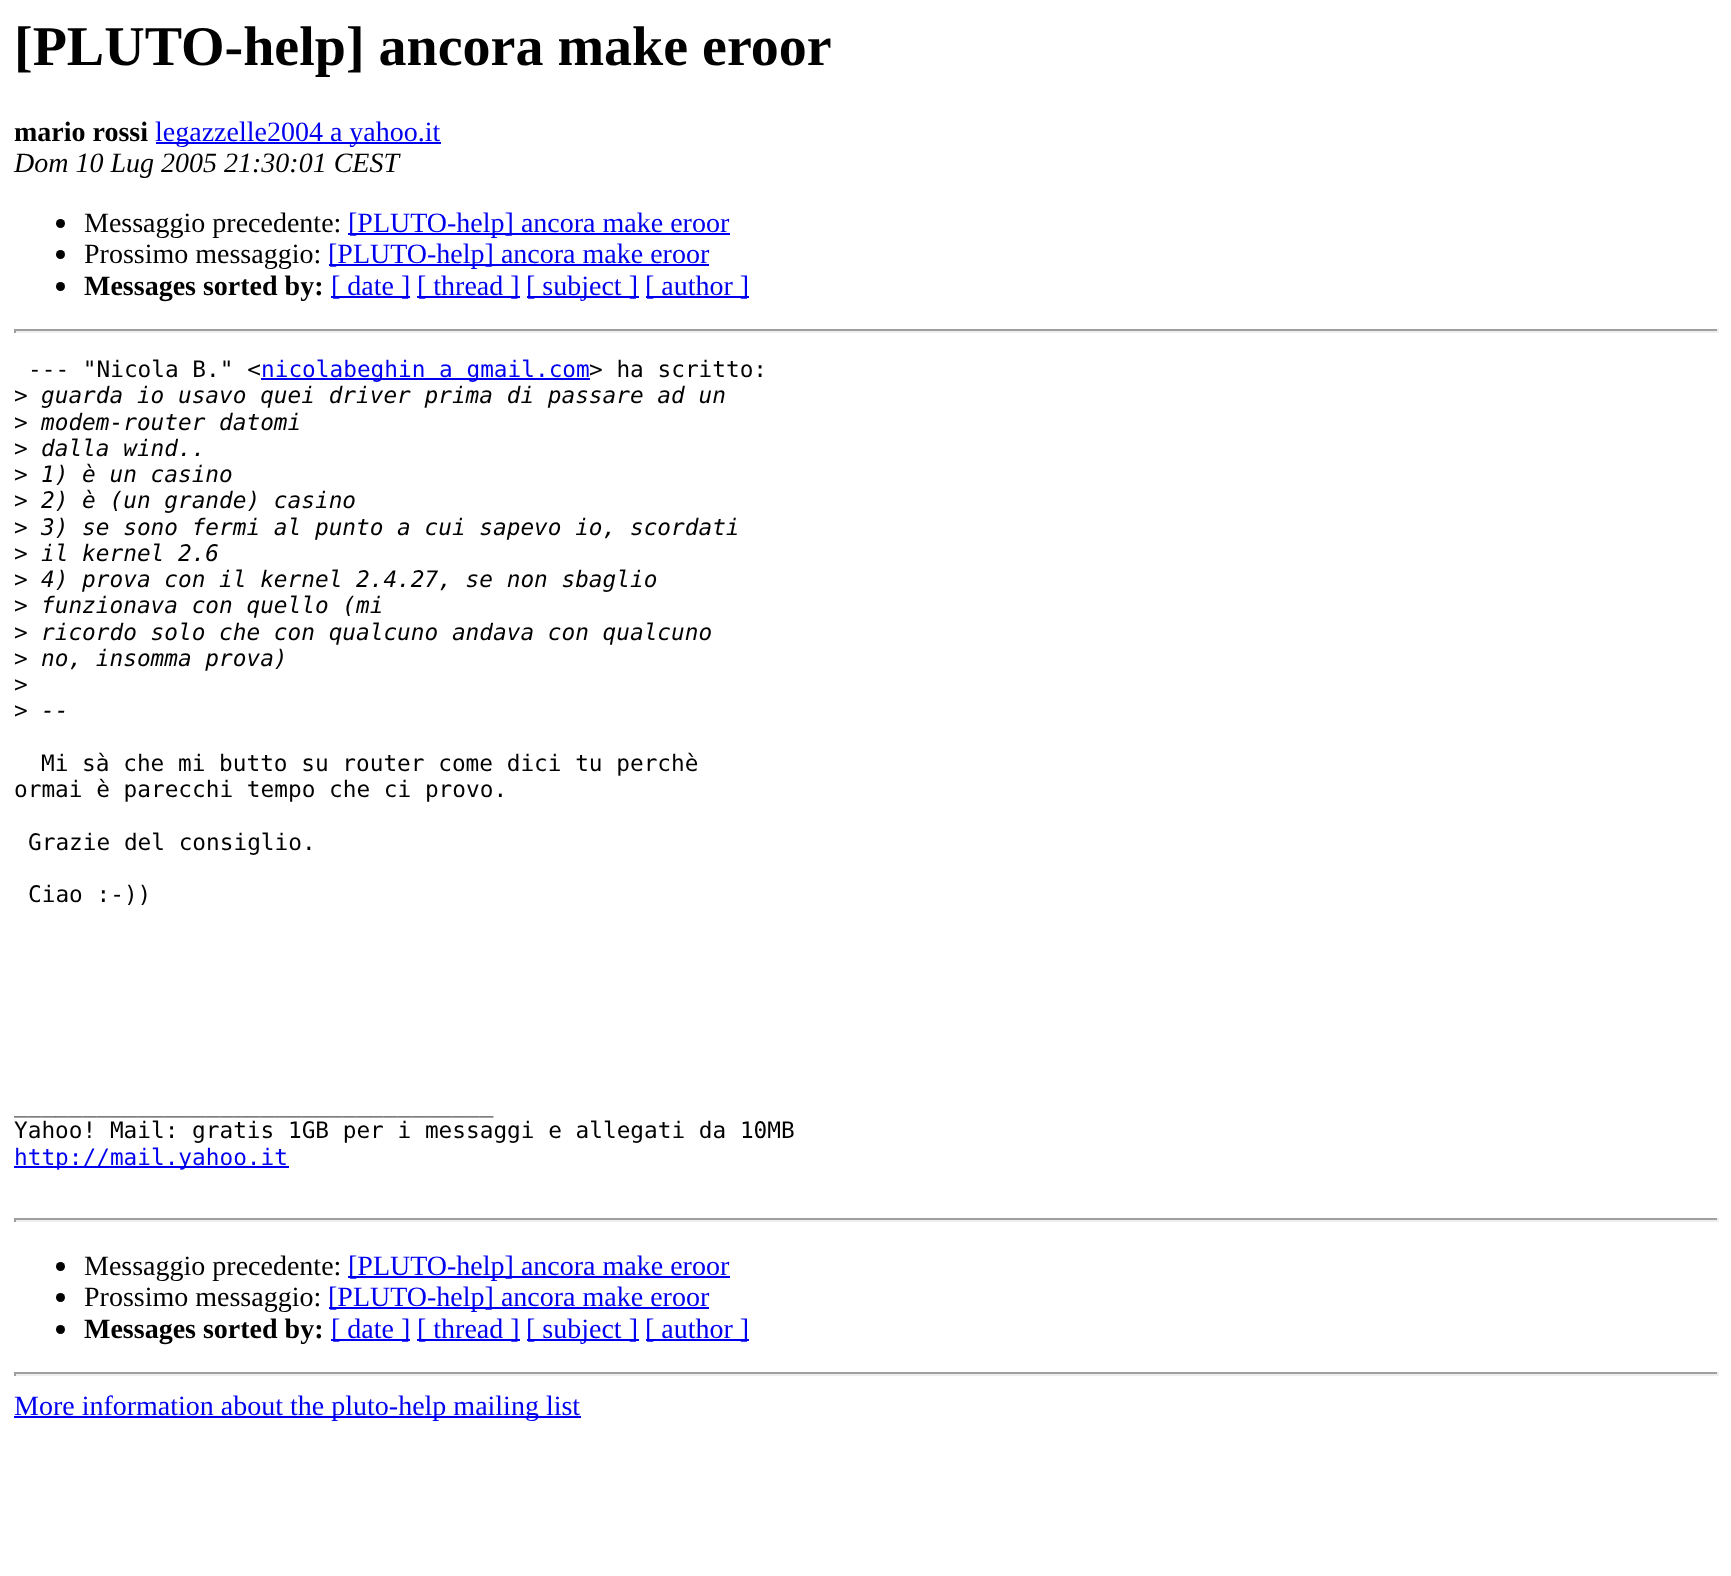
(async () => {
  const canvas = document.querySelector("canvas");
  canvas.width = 1731;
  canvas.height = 1576;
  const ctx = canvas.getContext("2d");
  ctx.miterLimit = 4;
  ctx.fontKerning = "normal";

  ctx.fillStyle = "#ffffff";
  ctx.fillRect(0, 0, 1731, 1576);
  ctx.fillStyle = "#0000ee";
  ctx.fillRect(156, 142, 285, 2);
  ctx.fillStyle = "#000000";
  ctx.beginPath();
  ctx.arc(60.5, 223.5, 4.5, 0, Math.PI * 2);
  ctx.fill();
  ctx.fillStyle = "#0000ee";
  ctx.fillRect(348, 233, 382, 2);
  ctx.fillStyle = "#000000";
  ctx.beginPath();
  ctx.arc(60.5, 254.5, 4.5, 0, Math.PI * 2);
  ctx.fill();
  ctx.fillStyle = "#0000ee";
  ctx.fillRect(329, 264, 380, 2);
  ctx.fillStyle = "#000000";
  ctx.beginPath();
  ctx.arc(60.5, 286.5, 4.5, 0, Math.PI * 2);
  ctx.fill();
  for (const [x, y, w, h, color] of [
    [331, 296, 79, 2, "#0000ee"],
    [417, 296, 103, 2, "#0000ee"],
    [527, 296, 112, 2, "#0000ee"],
    [646, 296, 103, 2, "#0000ee"],
    [14, 329, 1705, 2, "#9f9f9f"],
    [1717, 329, 2, 4, "#eeeeee"],
    [14, 331, 1705, 2, "#eeeeee"],
    [14, 329, 2, 4, "#9f9f9f"],
    [261, 378, 329, 2, "#0000ee"],
    [14, 1166, 275, 2, "#0000ee"],
    [14, 1218, 1705, 2, "#9f9f9f"],
    [1717, 1218, 2, 4, "#eeeeee"],
    [14, 1220, 1705, 2, "#eeeeee"],
    [14, 1218, 2, 4, "#9f9f9f"],
  ]) {
    ctx.fillStyle = color;
    ctx.fillRect(x, y, w, h);
  }
  ctx.fillStyle = "#000000";
  ctx.beginPath();
  ctx.arc(60.5, 1266.5, 4.5, 0, Math.PI * 2);
  ctx.fill();
  ctx.fillStyle = "#0000ee";
  ctx.fillRect(348, 1276, 382, 2);
  ctx.fillStyle = "#000000";
  ctx.beginPath();
  ctx.arc(60.5, 1297.5, 4.5, 0, Math.PI * 2);
  ctx.fill();
  ctx.fillStyle = "#0000ee";
  ctx.fillRect(329, 1307, 380, 2);
  ctx.fillStyle = "#000000";
  ctx.beginPath();
  ctx.arc(60.5, 1329.5, 4.5, 0, Math.PI * 2);
  ctx.fill();
  for (const [x, y, w, h, color] of [
    [331, 1339, 79, 2, "#0000ee"],
    [417, 1339, 103, 2, "#0000ee"],
    [527, 1339, 112, 2, "#0000ee"],
    [646, 1339, 103, 2, "#0000ee"],
    [14, 1372, 1705, 2, "#9f9f9f"],
    [1717, 1372, 2, 4, "#eeeeee"],
    [14, 1374, 1705, 2, "#eeeeee"],
    [14, 1372, 2, 4, "#9f9f9f"],
    [14, 1416, 567, 2, "#0000ee"],
  ]) {
    ctx.fillStyle = color;
    ctx.fillRect(x, y, w, h);
  }
  ctx.font = "bold 56px Liberation Serif";
  ctx.fillStyle = "#000000";
  ctx.fillText("[PLUTO-help] ancora make eroor", 14, 65);
  ctx.font = "bold 28px Liberation Serif";
  ctx.fillText("mario rossi", 14, 141);
  ctx.font = "28px Liberation Serif";
  ctx.fillStyle = "#0000ee";
  ctx.fillText("legazzelle2004 a yahoo.it", 155, 141);
  ctx.font = "italic 28px Liberation Serif";
  ctx.fillStyle = "#000000";
  ctx.fillText("Dom 10 Lug 2005 21:30:01 CEST", 14, 172);
  ctx.font = "28px Liberation Serif";
  ctx.fillText("Messaggio precedente:", 84, 232);
  ctx.fillStyle = "#0000ee";
  ctx.fillText("[PLUTO-help] ancora make eroor", 348, 232);
  ctx.fillStyle = "#000000";
  ctx.fillText("Prossimo messaggio:", 84, 263);
  ctx.fillStyle = "#0000ee";
  ctx.fillText("[PLUTO-help] ancora make eroor", 328, 263);
  ctx.font = "bold 28px Liberation Serif";
  ctx.fillStyle = "#000000";
  ctx.fillText("Messages sorted by:", 84, 295);
  ctx.font = "28px Liberation Serif";
  ctx.fillStyle = "#0000ee";
  for (const [text, x, y] of [
    ["[ date ]", 331, 295],
    ["[ thread ]", 417, 295],
    ["[ subject ]", 526, 295],
    ["[ author ]", 645, 295],
  ]) {
    ctx.fillText(text, x, y);
  }
  ctx.font = "22.75px DejaVu Sans Mono";
  ctx.fillStyle = "#000000";
  ctx.fillText("--- \"Nicola B.\" <", 28, 377);
  ctx.fillStyle = "#0000ee";
  ctx.fillText("nicolabeghin a gmail.com", 261, 377);
  ctx.fillStyle = "#000000";
  ctx.fillText("> ha scritto:", 589, 377);
  ctx.fillText(">", 14, 403);
  ctx.font = "italic 22.75px DejaVu Sans Mono";
  ctx.fillText("guarda io usavo quei driver prima di passare ad un", 41, 403);
  ctx.font = "22.75px DejaVu Sans Mono";
  ctx.fillText(">", 14, 430);
  ctx.font = "italic 22.75px DejaVu Sans Mono";
  ctx.fillText("modem-router datomi", 41, 430);
  ctx.font = "22.75px DejaVu Sans Mono";
  ctx.fillText(">", 14, 456);
  ctx.font = "italic 22.75px DejaVu Sans Mono";
  ctx.fillText("dalla wind..", 41, 456);
  ctx.font = "22.75px DejaVu Sans Mono";
  ctx.fillText(">", 14, 482);
  ctx.font = "italic 22.75px DejaVu Sans Mono";
  ctx.fillText("1) è un casino", 41, 482);
  ctx.font = "22.75px DejaVu Sans Mono";
  ctx.fillText(">", 14, 508);
  ctx.font = "italic 22.75px DejaVu Sans Mono";
  ctx.fillText("2) è (un grande) casino", 41, 508);
  ctx.font = "22.75px DejaVu Sans Mono";
  ctx.fillText(">", 14, 535);
  ctx.font = "italic 22.75px DejaVu Sans Mono";
  ctx.fillText("3) se sono fermi al punto a cui sapevo io, scordati", 41, 535);
  ctx.font = "22.75px DejaVu Sans Mono";
  ctx.fillText(">", 14, 561);
  ctx.font = "italic 22.75px DejaVu Sans Mono";
  ctx.fillText("il kernel 2.6", 41, 561);
  ctx.font = "22.75px DejaVu Sans Mono";
  ctx.fillText(">", 14, 587);
  ctx.font = "italic 22.75px DejaVu Sans Mono";
  ctx.fillText("4) prova con il kernel 2.4.27, se non sbaglio", 41, 587);
  ctx.font = "22.75px DejaVu Sans Mono";
  ctx.fillText(">", 14, 613);
  ctx.font = "italic 22.75px DejaVu Sans Mono";
  ctx.fillText("funzionava con quello (mi", 41, 613);
  ctx.font = "22.75px DejaVu Sans Mono";
  ctx.fillText(">", 14, 640);
  ctx.font = "italic 22.75px DejaVu Sans Mono";
  ctx.fillText("ricordo solo che con qualcuno andava con qualcuno", 41, 640);
  ctx.font = "22.75px DejaVu Sans Mono";
  ctx.fillText(">", 14, 666);
  ctx.font = "italic 22.75px DejaVu Sans Mono";
  ctx.fillText("no, insomma prova)", 41, 666);
  ctx.font = "22.75px DejaVu Sans Mono";
  ctx.fillText(">", 14, 692);
  ctx.fillText(">", 14, 718);
  ctx.font = "italic 22.75px DejaVu Sans Mono";
  ctx.fillText("--", 41, 718);
  ctx.font = "22.75px DejaVu Sans Mono";
  for (const [text, x, y] of [
    ["Mi sà che mi butto su router come dici tu perchè", 41, 771],
    ["ormai è parecchi tempo che ci provo.", 14, 797],
    ["Grazie del consiglio.", 28, 850],
    ["Ciao :-))", 28, 902],
    ["___________________________________", 14, 1112],
    ["Yahoo! Mail: gratis 1GB per i messaggi e allegati da 10MB", 14, 1138],
  ]) {
    ctx.fillText(text, x, y);
  }
  ctx.fillStyle = "#0000ee";
  ctx.fillText("http://mail.yahoo.it", 14, 1165);
  ctx.font = "28px Liberation Serif";
  ctx.fillStyle = "#000000";
  ctx.fillText("Messaggio precedente:", 84, 1275);
  ctx.fillStyle = "#0000ee";
  ctx.fillText("[PLUTO-help] ancora make eroor", 348, 1275);
  ctx.fillStyle = "#000000";
  ctx.fillText("Prossimo messaggio:", 84, 1306);
  ctx.fillStyle = "#0000ee";
  ctx.fillText("[PLUTO-help] ancora make eroor", 328, 1306);
  ctx.font = "bold 28px Liberation Serif";
  ctx.fillStyle = "#000000";
  ctx.fillText("Messages sorted by:", 84, 1338);
  ctx.font = "28px Liberation Serif";
  ctx.fillStyle = "#0000ee";
  for (const [text, x, y] of [
    ["[ date ]", 331, 1338],
    ["[ thread ]", 417, 1338],
    ["[ subject ]", 526, 1338],
    ["[ author ]", 645, 1338],
    ["More information about the pluto-help mailing list", 14, 1415],
  ]) {
    ctx.fillText(text, x, y);
  }
})();
